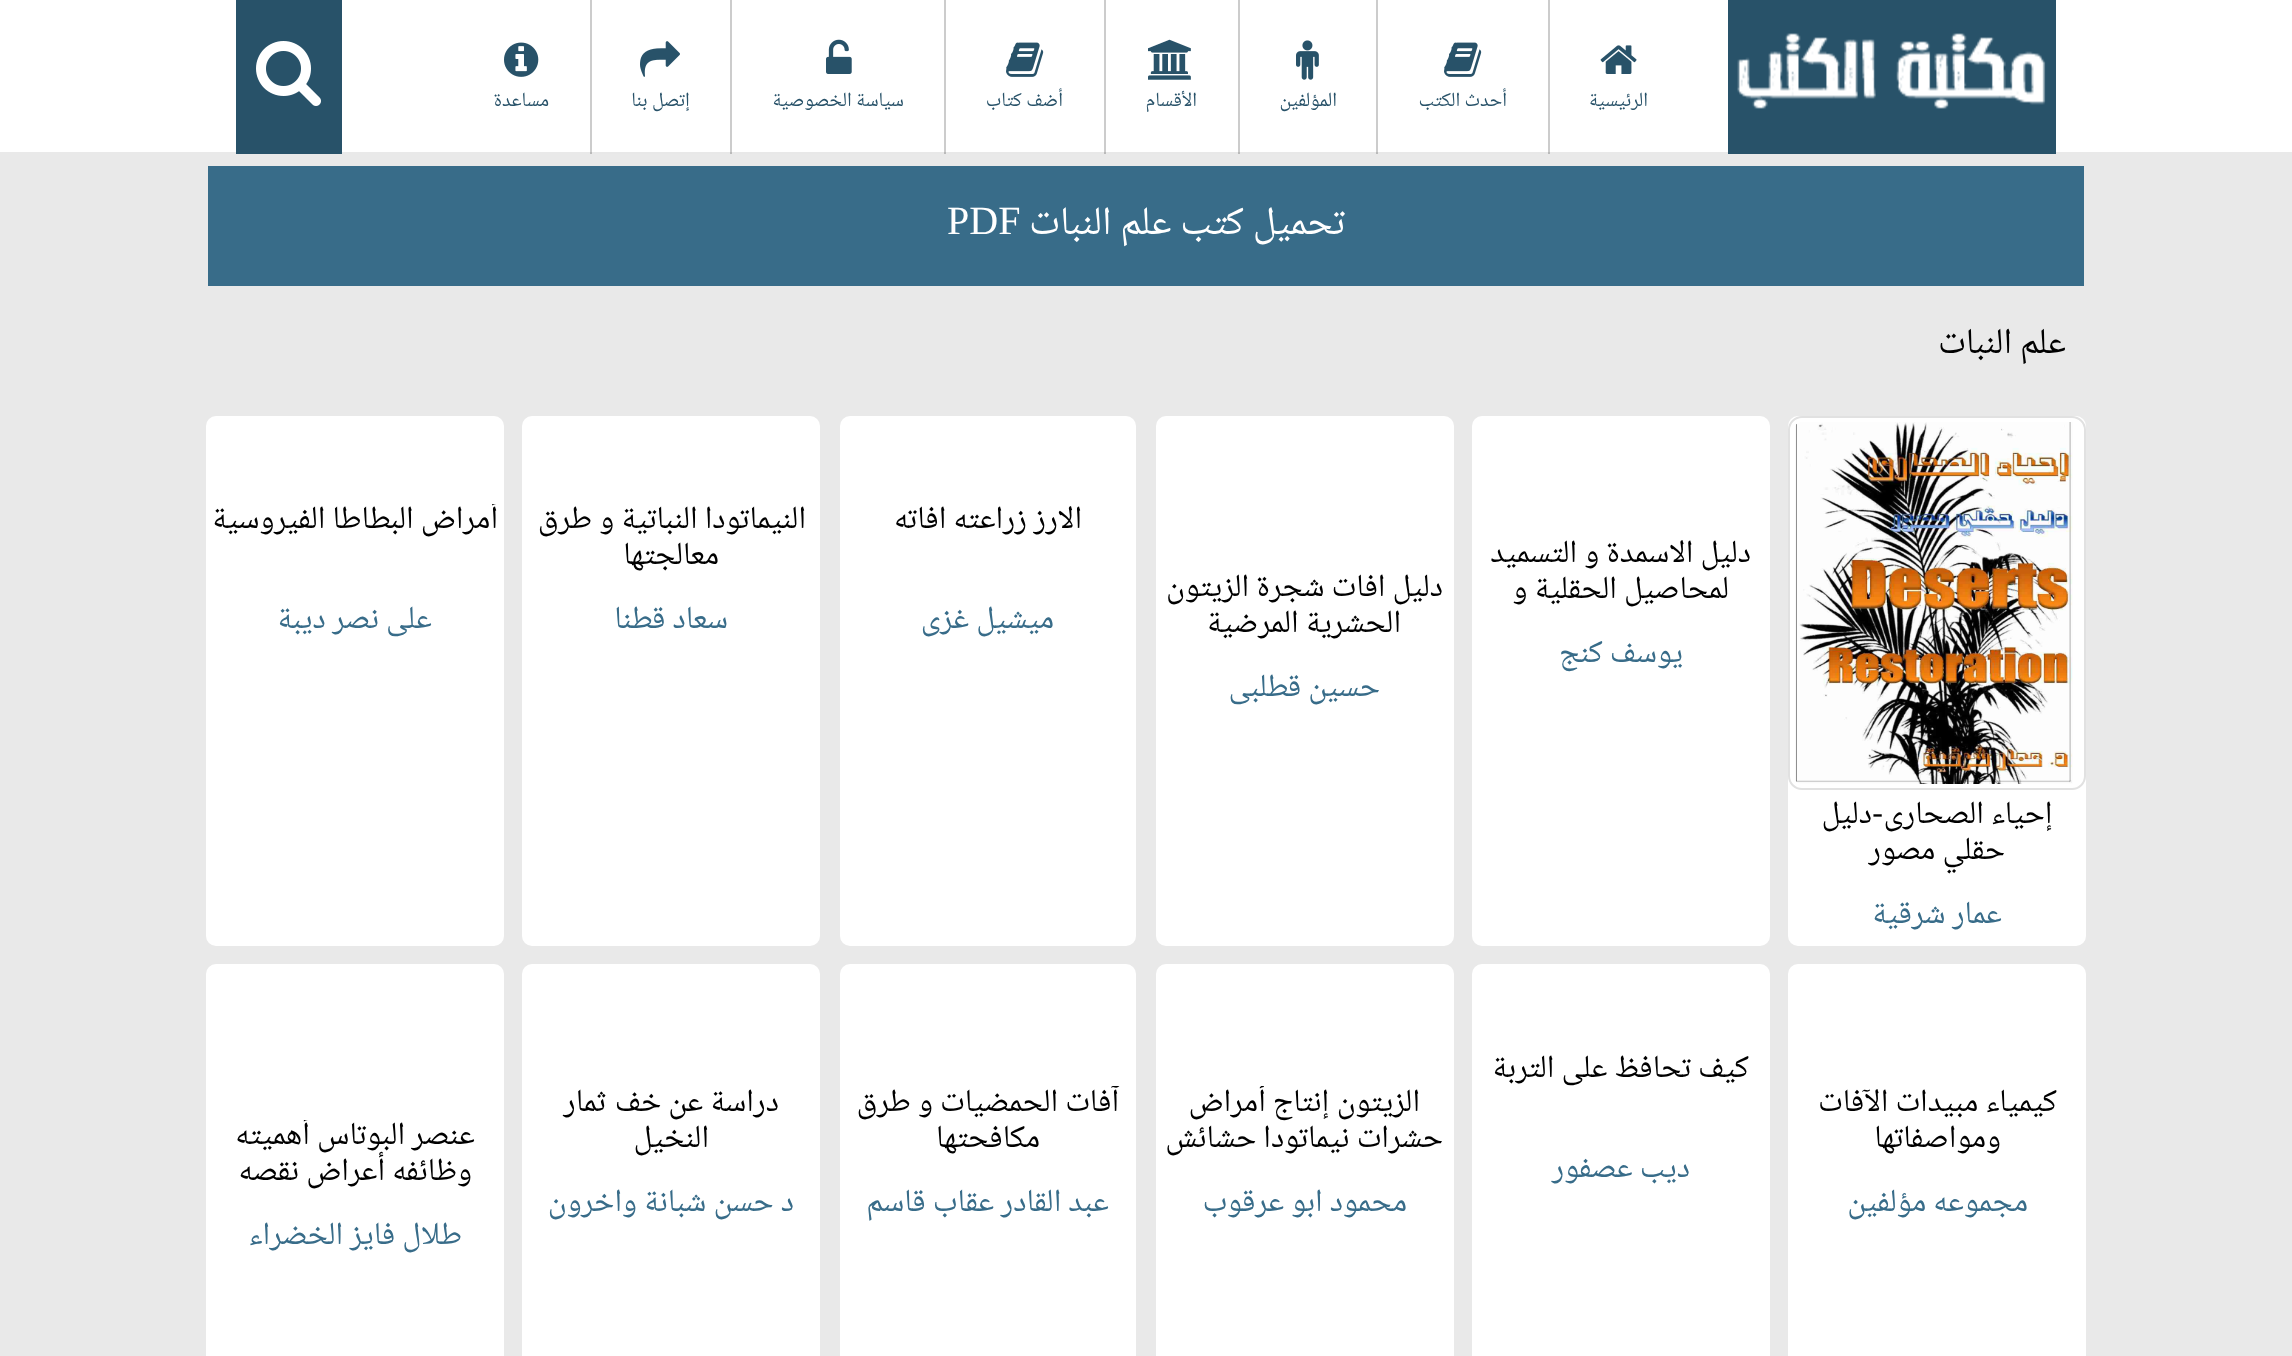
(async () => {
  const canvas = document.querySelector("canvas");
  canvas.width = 2292;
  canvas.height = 1356;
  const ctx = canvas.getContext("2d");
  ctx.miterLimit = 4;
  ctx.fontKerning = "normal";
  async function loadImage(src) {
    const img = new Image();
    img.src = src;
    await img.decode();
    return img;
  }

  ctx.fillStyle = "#e9e9e9";
  ctx.fillRect(0, 0, 2292, 1356);
  for (const [x, y, w, h, color] of [
    [0, 0, 2292, 152, "#ffffff"],
    [590, 0, 2, 154, "#cccccc"],
    [730, 0, 2, 154, "#cccccc"],
    [944, 0, 2, 154, "#cccccc"],
    [1104, 0, 2, 154, "#cccccc"],
    [1238, 0, 2, 154, "#cccccc"],
    [1376, 0, 2, 154, "#cccccc"],
    [1548, 0, 2, 154, "#cccccc"],
    [590, 152, 960, 2, "#e8e8e8"],
    [590, 152, 2, 2, "#bababa"],
    [730, 152, 2, 2, "#bababa"],
    [944, 152, 2, 2, "#bababa"],
    [1104, 152, 2, 2, "#bababa"],
    [1238, 152, 2, 2, "#bababa"],
    [1376, 152, 2, 2, "#bababa"],
    [1548, 152, 2, 2, "#bababa"],
    [1728, 0, 328, 154, "#285269"],
  ]) {
    ctx.fillStyle = color;
    ctx.fillRect(x, y, w, h);
  }
  ctx.drawImage(await loadImage("img/1.png"), 1737, 33, 309, 76);
  ctx.drawImage(await loadImage("img/2.png"), 1600, 45, 37, 29);
  ctx.drawImage(await loadImage("img/3.png"), 1444, 42, 38, 35);
  ctx.drawImage(await loadImage("img/4.png"), 1296, 40, 23, 40);
  ctx.drawImage(await loadImage("img/5.png"), 1148, 39, 43, 41);
  ctx.drawImage(await loadImage("img/3.png"), 1006, 42, 38, 35);
  ctx.drawImage(await loadImage("img/6.png"), 826, 39, 26, 35);
  ctx.drawImage(await loadImage("img/7.png"), 640, 41, 40, 36);
  ctx.drawImage(await loadImage("img/8.png"), 504, 42, 35, 35);
  ctx.fillRect(236, 0, 106, 154);
  ctx.drawImage(await loadImage("img/9.png"), 256, 41, 65, 65);
  ctx.fillStyle = "#386c89";
  ctx.fillRect(208, 166, 1876, 120);
  ctx.fillStyle = "#ffffff";
  ctx.beginPath();
  ctx.roundRect(1472, 416, 298, 530, 10);
  ctx.fill();
  ctx.beginPath();
  ctx.roundRect(1156, 416, 298, 530, 10);
  ctx.fill();
  ctx.beginPath();
  ctx.roundRect(840, 416, 296, 530, 10);
  ctx.fill();
  ctx.beginPath();
  ctx.roundRect(522, 416, 298, 530, 10);
  ctx.fill();
  ctx.beginPath();
  ctx.roundRect(206, 416, 298, 530, 10);
  ctx.fill();
  ctx.beginPath();
  ctx.roundRect(1788, 416, 298, 530, 10);
  ctx.fill();
  ctx.beginPath();
  ctx.roundRect(1789, 417, 296, 372, 13);
  ctx.strokeStyle = "#e1e1e1";
  ctx.lineWidth = 2;
  ctx.stroke();
  ctx.drawImage(await loadImage("img/10.png"), 1795, 422, 278, 362);
  ctx.beginPath();
  ctx.roundRect(1788, 964, 298, 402, 10);
  ctx.fill();
  ctx.beginPath();
  ctx.roundRect(1472, 964, 298, 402, 10);
  ctx.fill();
  ctx.beginPath();
  ctx.roundRect(1156, 964, 298, 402, 10);
  ctx.fill();
  ctx.beginPath();
  ctx.roundRect(840, 964, 296, 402, 10);
  ctx.fill();
  ctx.beginPath();
  ctx.roundRect(522, 964, 298, 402, 10);
  ctx.fill();
  ctx.beginPath();
  ctx.roundRect(206, 964, 298, 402, 10);
  ctx.fill();
  ctx.direction = "rtl";
  ctx.font = "20px Noto Naskh Arabic";
  ctx.fillStyle = "#285269";
  for (const [text, x, y] of [
    ["الرئيسية", 1648, 106],
    ["أحدث الكتب", 1507, 106],
    ["المؤلفين", 1337, 106],
    ["الأقسام", 1197, 106],
    ["أضف كتاب", 1063, 106],
    ["سياسة الخصوصية", 904, 106],
    ["إتصل بنا", 690, 106],
    ["مساعدة", 549, 106],
  ]) {
    ctx.fillText(text, x, y);
  }
  ctx.font = "40px Noto Naskh Arabic";
  ctx.fillStyle = "#ffffff";
  ctx.fillText("تحميل كتب علم النبات", 1345, 234);
  ctx.direction = "ltr";
  ctx.font = "40px Liberation Serif";
  ctx.fillText("PDF", 947, 234);
  ctx.direction = "rtl";
  ctx.font = "36px Noto Naskh Arabic";
  ctx.fillStyle = "#000000";
  ctx.fillText("علم النبات", 2066, 353);
  ctx.font = "32px Noto Naskh Arabic";
  ctx.fillText("دليل الاسمدة و التسميد", 1751, 562);
  ctx.fillText("لمحاصيل الحقلية و", 1729, 598);
  ctx.fillStyle = "#386c89";
  ctx.fillText("يوسف كنج", 1683, 662);
  ctx.fillStyle = "#000000";
  ctx.fillText("دليل افات شجرة الزيتون", 1443, 596);
  ctx.fillText("الحشرية المرضية", 1401, 632);
  ctx.fillStyle = "#386c89";
  ctx.fillText("حسين قطلبى", 1380, 696);
  ctx.fillStyle = "#000000";
  ctx.fillText("الارز زراعته افاته", 1082, 528);
  ctx.fillStyle = "#386c89";
  ctx.fillText("ميشيل غزى", 1054, 628);
  ctx.fillStyle = "#000000";
  ctx.fillText("النيماتودا النباتية و طرق", 806, 528);
  ctx.fillText("معالجتها", 719, 564);
  ctx.fillStyle = "#386c89";
  ctx.fillText("سعاد قطنا", 728, 628);
  ctx.save();
  ctx.beginPath();
  ctx.rect(206, 504, 298, 90);
  ctx.clip();
  ctx.fillStyle = "#000000";
  ctx.fillText("أمراض البطاطا الفيروسية", 498, 528);
  ctx.restore();
  ctx.fillText("على نصر ديبة", 432, 628);
  ctx.fillStyle = "#000000";
  ctx.fillText("إحياء الصحارى", 2053, 823);
  ctx.font = "32px Liberation Serif";
  ctx.fillText("-", 1883, 823);
  ctx.font = "32px Noto Naskh Arabic";
  ctx.fillText("دليل", 1872, 823);
  ctx.fillText("حقلي مصور", 2005, 859);
  ctx.fillStyle = "#386c89";
  ctx.fillText("عمار شرقية", 2002, 923);
  ctx.fillStyle = "#000000";
  ctx.fillText("كيمياء مبيدات الآفات", 2057, 1111);
  ctx.fillText("ومواصفاتها", 2001, 1147);
  ctx.fillStyle = "#386c89";
  ctx.fillText("مجموعه مؤلفين", 2028, 1211);
  ctx.fillStyle = "#000000";
  ctx.fillText("كيف تحافظ على التربة", 1749, 1077);
  ctx.fillStyle = "#386c89";
  ctx.fillText("ديب عصفور", 1690, 1177);
  ctx.save();
  ctx.beginPath();
  ctx.rect(1156, 1086, 298, 90);
  ctx.clip();
  ctx.fillStyle = "#000000";
  ctx.fillText("الزيتون إنتاج أمراض", 1420, 1111);
  ctx.restore();
  ctx.fillStyle = "#000000";
  ctx.fillText("حشرات نيماتودا حشائش", 1443, 1147);
  ctx.fillStyle = "#386c89";
  ctx.fillText("محمود ابو عرقوب", 1407, 1211);
  ctx.save();
  ctx.beginPath();
  ctx.rect(840, 1086, 296, 90);
  ctx.clip();
  ctx.fillStyle = "#000000";
  ctx.fillText("آفات الحمضيات و طرق", 1119, 1111);
  ctx.restore();
  ctx.fillStyle = "#000000";
  ctx.fillText("مكافحتها", 1040, 1147);
  ctx.fillStyle = "#386c89";
  ctx.fillText("عبد القادر عقاب قاسم", 1109, 1211);
  ctx.fillStyle = "#000000";
  ctx.fillText("دراسة عن خف ثمار", 779, 1111);
  ctx.fillText("النخيل", 709, 1147);
  ctx.fillStyle = "#386c89";
  ctx.fillText("د حسن شبانة واخرون", 794, 1211);
  ctx.save();
  ctx.beginPath();
  ctx.rect(206, 1120, 298, 90);
  ctx.clip();
  ctx.fillStyle = "#000000";
  ctx.fillText("عنصر البوتاس أهميته", 475, 1144);
  ctx.restore();
  ctx.fillStyle = "#000000";
  ctx.fillText("وظائفه أعراض نقصه", 472, 1180);
  ctx.fillStyle = "#386c89";
  ctx.fillText("طلال فايز الخضراء", 462, 1244);
})();
